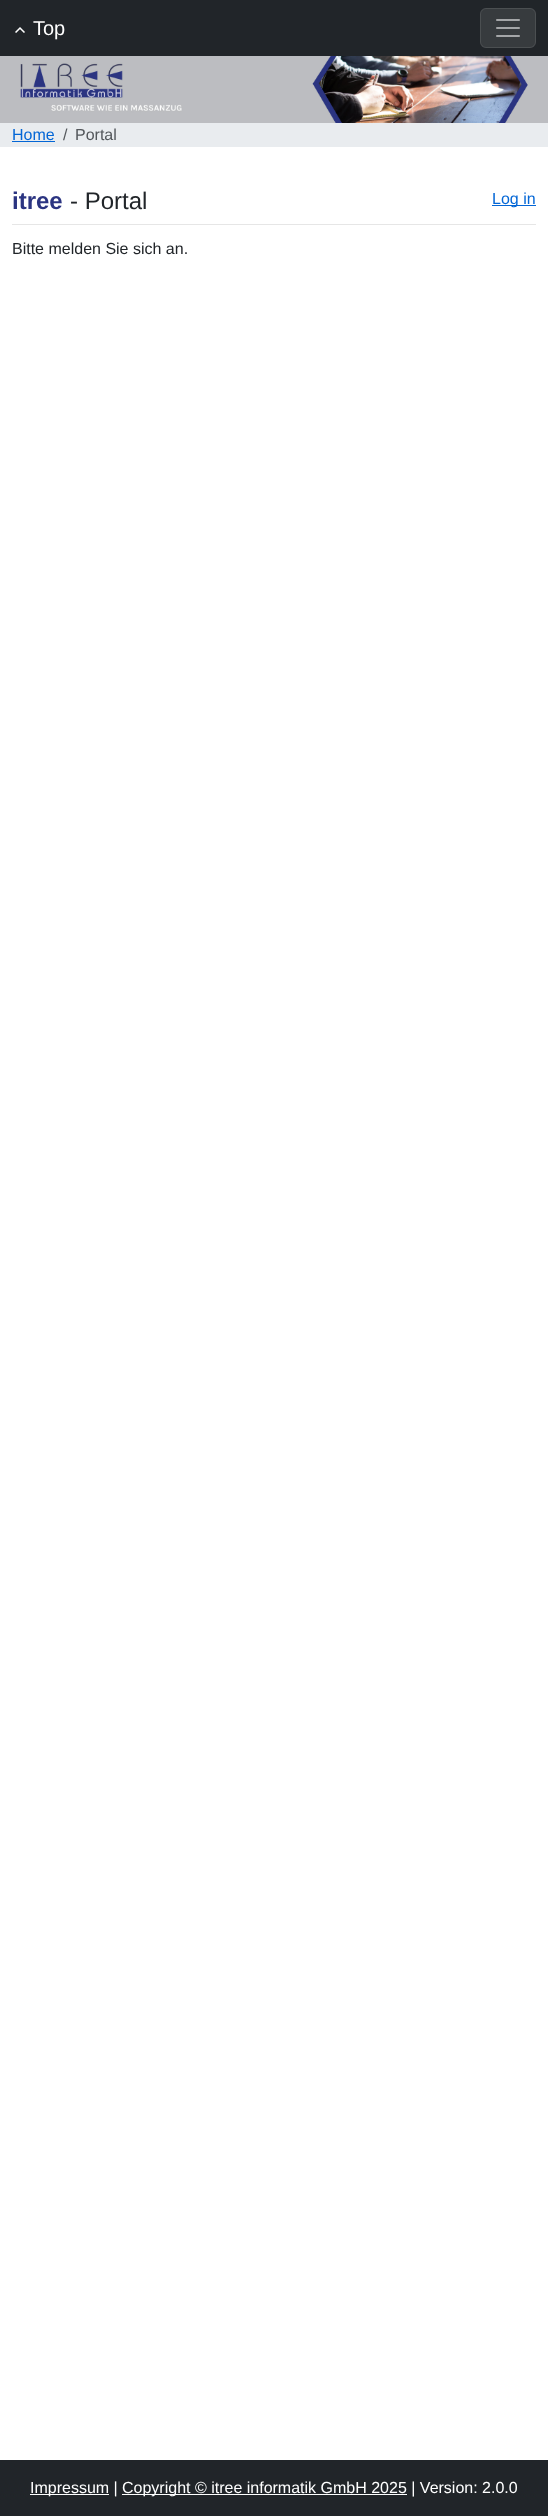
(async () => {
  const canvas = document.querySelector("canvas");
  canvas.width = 548;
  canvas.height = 2516;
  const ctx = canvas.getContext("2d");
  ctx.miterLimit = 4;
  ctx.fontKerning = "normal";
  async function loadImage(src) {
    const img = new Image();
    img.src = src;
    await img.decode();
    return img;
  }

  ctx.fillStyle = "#ffffff";
  ctx.fillRect(0, 0, 548, 2516);
  ctx.fillStyle = "#212529";
  ctx.fillRect(0, 0, 548, 56);
  ctx.drawImage(await loadImage("img/1.png"), 15, 27, 10, 6);
  ctx.fillStyle = "#373b3e";
  ctx.beginPath();
  ctx.roundRect(480, 8, 56, 40, 6);
  ctx.fill();
  ctx.beginPath();
  ctx.roundRect(480.5, 8.5, 55, 39, 5.5);
  ctx.strokeStyle = "rgba(255, 255, 255, 0.1)";
  ctx.stroke();
  ctx.drawImage(await loadImage("img/2.png"), 496, 19, 24, 18);
  ctx.fillStyle = "#bcbdc1";
  ctx.fillRect(0, 56, 548, 67);
  ctx.drawImage(await loadImage("img/3.png"), 20, 56, 508, 67);
  for (const [x, y, w, h, color] of [
    [0, 123, 548, 24, "#e9ecef"],
    [12, 141, 43, 1, "#0366d6"],
    [12, 224, 524, 1, "#e6e6e6"],
    [492, 205, 44, 1, "#0366d6"],
    [0, 2460, 548, 56, "#212529"],
    [30, 2494, 79, 1, "#ffffff"],
    [122, 2494, 285, 1, "#ffffff"],
  ]) {
    ctx.fillStyle = color;
    ctx.fillRect(x, y, w, h);
  }
  ctx.font = "20px Liberation Sans";
  ctx.fillText("Top", 33, 35);
  ctx.font = "16px Liberation Sans";
  ctx.fillStyle = "#0366d6";
  ctx.fillText("Home", 12, 140);
  ctx.fillStyle = "#53575b";
  ctx.fillText("/", 63, 140);
  ctx.fillText("Portal", 75, 140);
  ctx.font = "bold 24px Liberation Sans";
  ctx.fillStyle = "#2b3481";
  ctx.fillText("itree", 12, 209);
  ctx.font = "24px Liberation Sans";
  ctx.fillStyle = "#212529";
  ctx.fillText("- Portal", 70, 209);
  ctx.font = "16px Liberation Sans";
  ctx.fillStyle = "#0366d6";
  ctx.fillText("Log in", 492, 204);
  ctx.fillStyle = "#212529";
  ctx.fillText("Bitte melden Sie sich an.", 12, 254);
  ctx.fillStyle = "#ffffff";
  ctx.fillText("Impressum |", 30, 2493);
  ctx.fillText("Copyright © itree informatik GmbH 2025 | Version: 2.0.0", 122, 2493);
})();
